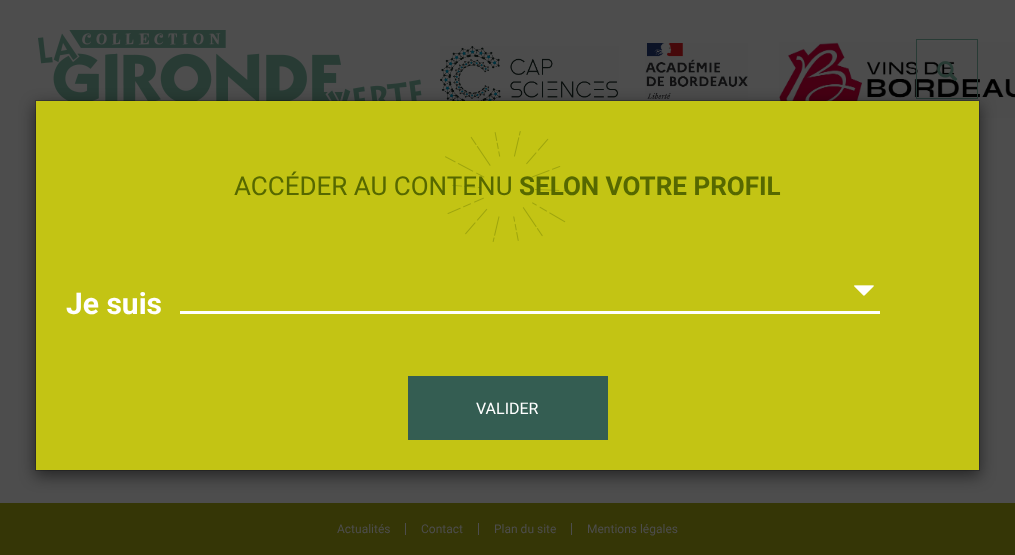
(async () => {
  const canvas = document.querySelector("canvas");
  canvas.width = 1015;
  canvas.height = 555;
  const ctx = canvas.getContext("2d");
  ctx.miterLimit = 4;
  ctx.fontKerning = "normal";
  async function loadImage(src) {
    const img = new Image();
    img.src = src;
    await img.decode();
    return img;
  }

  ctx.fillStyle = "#4d4d4d";
  ctx.fillRect(0, 0, 1015, 555);
  ctx.drawImage(await loadImage("img/1.png"), 38, 30, 386, 71);
  ctx.drawImage(await loadImage("img/5.png"), 779, 42, 236, 76);
  ctx.strokeStyle = "#283b35";
  ctx.strokeRect(916.5, 39.5, 61, 59);
  ctx.drawImage(await loadImage("img/2.png"), 937, 61, 21, 21);
  ctx.drawImage(await loadImage("img/3.png"), 440, 46, 179, 55);
  ctx.drawImage(await loadImage("img/4.png"), 645, 43, 103, 58);
  ctx.fillStyle = "rgba(0, 0, 0, 0.5)";
  ctx.filter = "blur(7.5px)";
  ctx.beginPath();
  ctx.rect(35, 105, 945, 371);
  ctx.fill();
  ctx.filter = "none";
  ctx.fillStyle = "#c3c414";
  ctx.fillRect(36, 101, 943, 369);
  ctx.strokeStyle = "rgba(0, 0, 0, 0.2)";
  ctx.strokeRect(35.5, 100.5, 944, 370);
  ctx.drawImage(await loadImage("img/6.png"), 445, 131, 125, 111);
  ctx.fillStyle = "#ffffff";
  ctx.fillRect(180, 311, 700, 3);
  ctx.drawImage(await loadImage("img/7.png"), 854, 285, 20, 11);
  for (const [x, y, w, h, color] of [
    [408, 376, 200, 64, "#345d52"],
    [0, 503, 1015, 52, "#353606"],
    [405, 523, 1, 12, "#4d4d4d"],
    [478, 523, 1, 12, "#4d4d4d"],
    [571, 523, 1, 12, "#4d4d4d"],
  ]) {
    ctx.fillStyle = color;
    ctx.fillRect(x, y, w, h);
  }
  ctx.font = "26px Roboto";
  ctx.fillStyle = "#566800";
  ctx.fillText("ACCÉDER AU CONTENU", 234, 195);
  ctx.font = "bold 26px Roboto";
  ctx.fillText("SELON VOTRE PROFIL", 519, 195);
  ctx.font = "bold 30px Roboto";
  ctx.fillStyle = "#ffffff";
  ctx.fillText("Je suis", 66, 314);
  ctx.font = "16px Roboto";
  ctx.fillText("VALIDER", 476, 414);
  ctx.font = "12px Roboto";
  ctx.fillStyle = "#4d4d4d";
  for (const [text, x, y] of [
    ["Actualités", 337, 533],
    ["Contact", 421, 533],
    ["Plan du site", 494, 533],
    ["Mentions légales", 587, 533],
  ]) {
    ctx.fillText(text, x, y);
  }
})();
